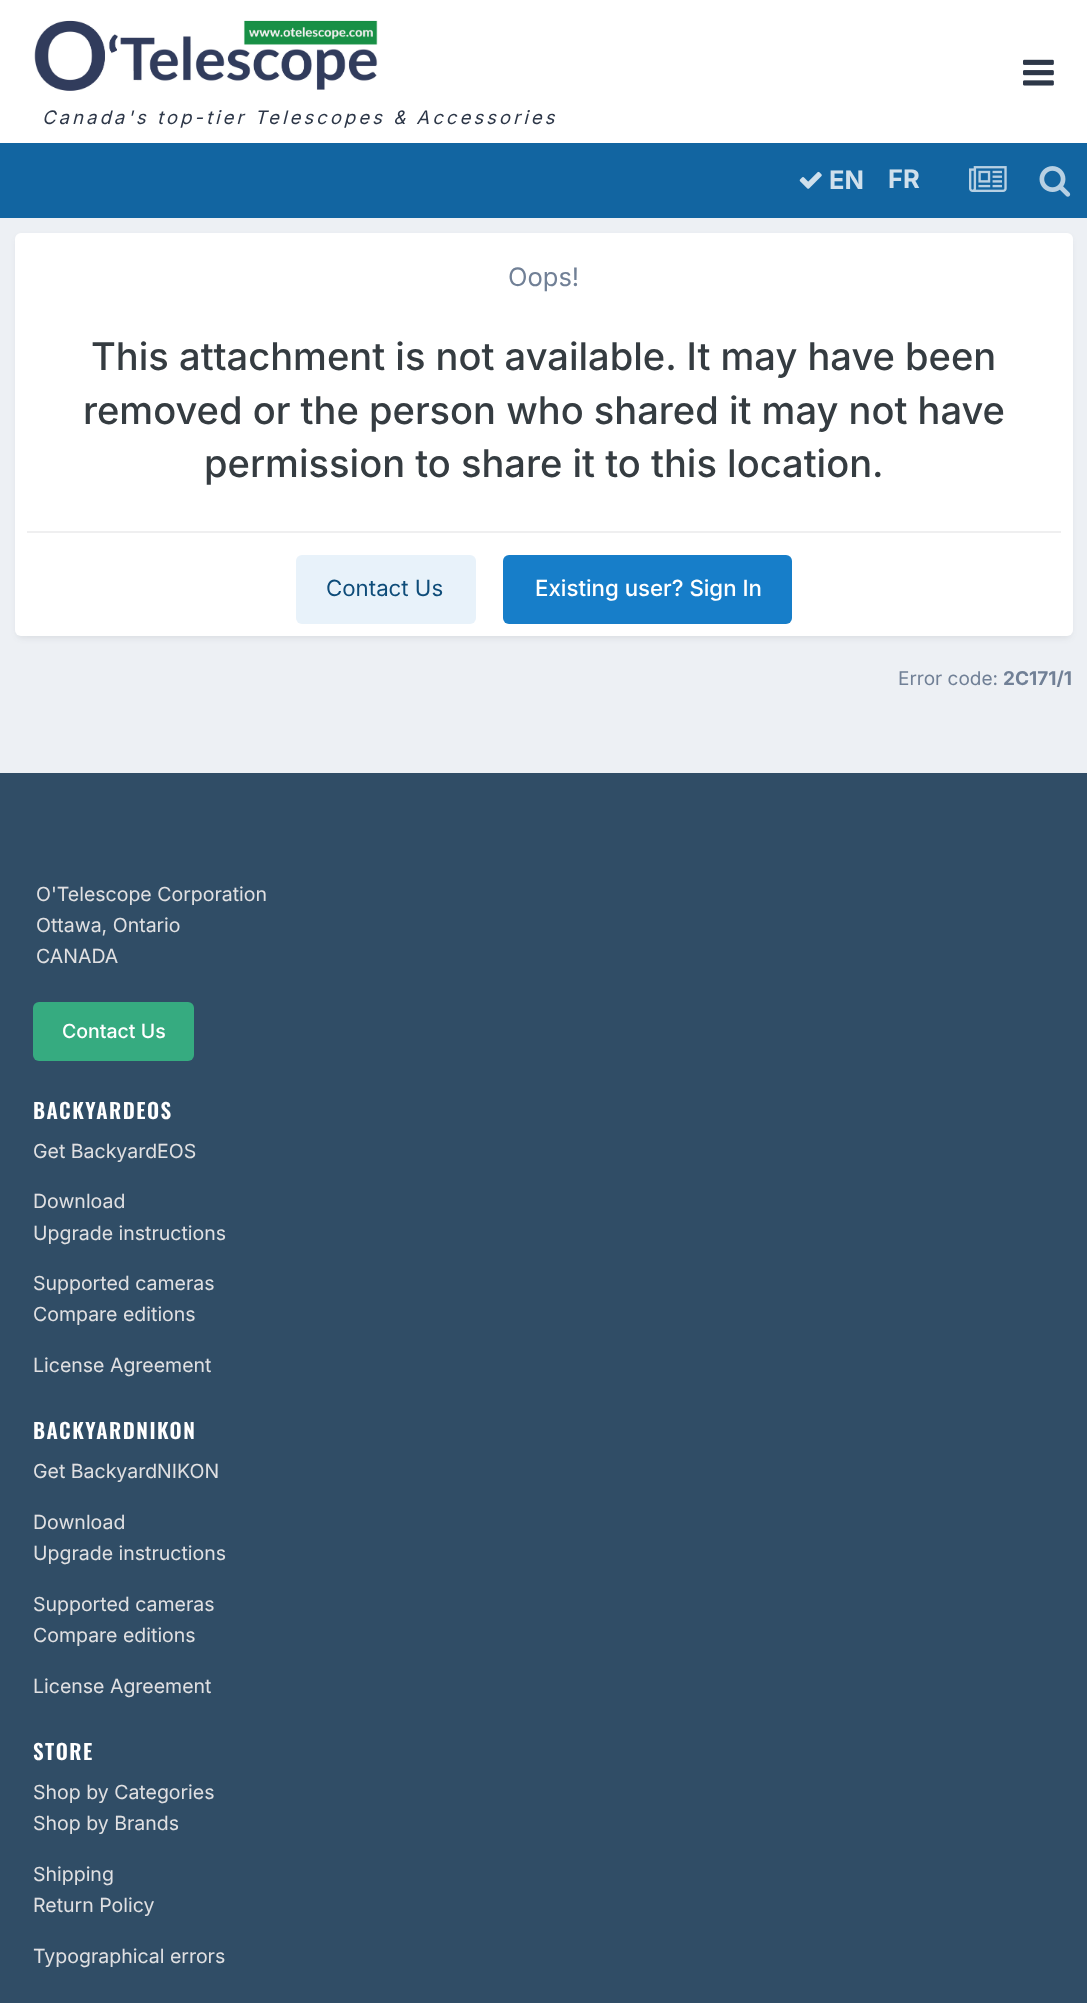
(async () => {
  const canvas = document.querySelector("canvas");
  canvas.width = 1087;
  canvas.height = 2003;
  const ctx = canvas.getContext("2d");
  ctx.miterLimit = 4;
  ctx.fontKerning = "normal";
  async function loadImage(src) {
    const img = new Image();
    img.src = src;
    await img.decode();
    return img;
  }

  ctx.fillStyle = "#edf0f4";
  ctx.fillRect(0, 0, 1087, 2003);
  ctx.fillStyle = "#ffffff";
  ctx.fillRect(0, 0, 1087, 143);
  ctx.drawImage(await loadImage("img/1.png"), 1023, 59, 31, 27);
  ctx.drawImage(await loadImage("img/2.png"), 34, 20, 344, 71);
  ctx.fillStyle = "#1265a1";
  ctx.fillRect(0, 143, 1087, 75);
  ctx.drawImage(await loadImage("img/3.png"), 799, 171, 23, 18);
  ctx.drawImage(await loadImage("img/4.png"), 969, 166, 38, 26);
  ctx.drawImage(await loadImage("img/5.png"), 1039, 166, 32, 31);
  ctx.fillStyle = "rgba(45, 55, 72, 0.1)";
  ctx.filter = "blur(3px)";
  ctx.beginPath();
  ctx.roundRect(17, 237, 1054, 401, 5);
  ctx.fill();
  ctx.filter = "none";
  ctx.fillStyle = "#ffffff";
  ctx.beginPath();
  ctx.roundRect(15, 233, 1058, 403, 6);
  ctx.fill();
  ctx.fillStyle = "#efeff0";
  ctx.fillRect(27, 531, 1034, 2);
  ctx.fillStyle = "#e8f2fa";
  ctx.beginPath();
  ctx.roundRect(296, 555, 180, 69, 6);
  ctx.fill();
  ctx.fillStyle = "#177ec9";
  ctx.beginPath();
  ctx.roundRect(503, 555, 289, 69, 6);
  ctx.fill();
  ctx.fillStyle = "#304d66";
  ctx.fillRect(0, 773, 1087, 1230);
  ctx.fillStyle = "#36ab80";
  ctx.beginPath();
  ctx.roundRect(33, 1002, 161, 59, 6);
  ctx.fill();
  ctx.letterSpacing = "3px";
  ctx.font = "italic 18.6px Inter";
  ctx.fillStyle = "#2d3748";
  ctx.fillText("Canada's top-tier Telescopes & Accessories", 42, 124);
  ctx.letterSpacing = "0px";
  ctx.font = "bold 25.5px Inter";
  ctx.fillStyle = "#d0e0ec";
  ctx.fillText("EN", 829, 189);
  ctx.fillText("FR", 888, 188);
  ctx.font = "25.5px Inter";
  ctx.fillStyle = "#718096";
  ctx.fillText("Oops!", 508, 286);
  ctx.font = "500 38.1px Inter";
  ctx.fillStyle = "#353c41";
  for (const [text, x, y] of [
    ["This attachment is not available. It may have been", 91, 370],
    ["removed or the person who shared it may not have", 83, 424],
    ["permission to share it to this location.", 204, 477],
  ]) {
    ctx.fillText(text, x, y);
  }
  ctx.font = "22.25px Inter";
  ctx.fillStyle = "#0e4c79";
  ctx.fillText("Contact Us", 326, 596);
  ctx.font = "500 22.25px Inter";
  ctx.fillStyle = "#ffffff";
  ctx.fillText("Existing user? Sign In", 535, 596);
  ctx.font = "19px Inter";
  ctx.fillStyle = "#718096";
  ctx.fillText("Error code:", 898, 685);
  ctx.font = "bold 19px Inter";
  ctx.fillText("2C171/1", 1003, 685);
  ctx.font = "19.5px Inter";
  ctx.fillStyle = "#e0e0e2";
  for (const [text, x, y] of [
    ["O'Telescope Corporation", 36, 901],
    ["Ottawa, Ontario", 36, 932],
    ["CANADA", 36, 963],
  ]) {
    ctx.fillText(text, x, y);
  }
  ctx.font = "500 19.5px Inter";
  ctx.fillStyle = "#ffffff";
  ctx.fillText("Contact Us", 62, 1038);
  ctx.letterSpacing = "1.5px";
  ctx.font = "600 21px Oswald";
  ctx.fillText("BACKYARDEOS", 33, 1119);
  ctx.letterSpacing = "0px";
  ctx.font = "19.5px Inter";
  ctx.fillStyle = "#e0e0e2";
  for (const [text, x, y] of [
    ["Get BackyardEOS", 33, 1158],
    ["Download", 33, 1208],
    ["Upgrade instructions", 33, 1240],
    ["Supported cameras", 33, 1290],
    ["Compare editions", 33, 1321],
    ["License Agreement", 33, 1372],
  ]) {
    ctx.fillText(text, x, y);
  }
  ctx.letterSpacing = "1.5px";
  ctx.font = "600 21px Oswald";
  ctx.fillStyle = "#ffffff";
  ctx.fillText("BACKYARDNIKON", 33, 1439);
  ctx.letterSpacing = "0px";
  ctx.font = "19.5px Inter";
  ctx.fillStyle = "#e0e0e2";
  for (const [text, x, y] of [
    ["Get BackyardNIKON", 33, 1478],
    ["Download", 33, 1529],
    ["Upgrade instructions", 33, 1560],
    ["Supported cameras", 33, 1611],
    ["Compare editions", 33, 1642],
    ["License Agreement", 33, 1693],
  ]) {
    ctx.fillText(text, x, y);
  }
  ctx.letterSpacing = "1.5px";
  ctx.font = "600 21px Oswald";
  ctx.fillStyle = "#ffffff";
  ctx.fillText("STORE", 33, 1760);
  ctx.letterSpacing = "0px";
  ctx.font = "19.5px Inter";
  ctx.fillStyle = "#e0e0e2";
  for (const [text, x, y] of [
    ["Shop by Categories", 33, 1799],
    ["Shop by Brands", 33, 1830],
    ["Shipping", 33, 1881],
    ["Return Policy", 33, 1912],
    ["Typographical errors", 33, 1963],
  ]) {
    ctx.fillText(text, x, y);
  }
})();
